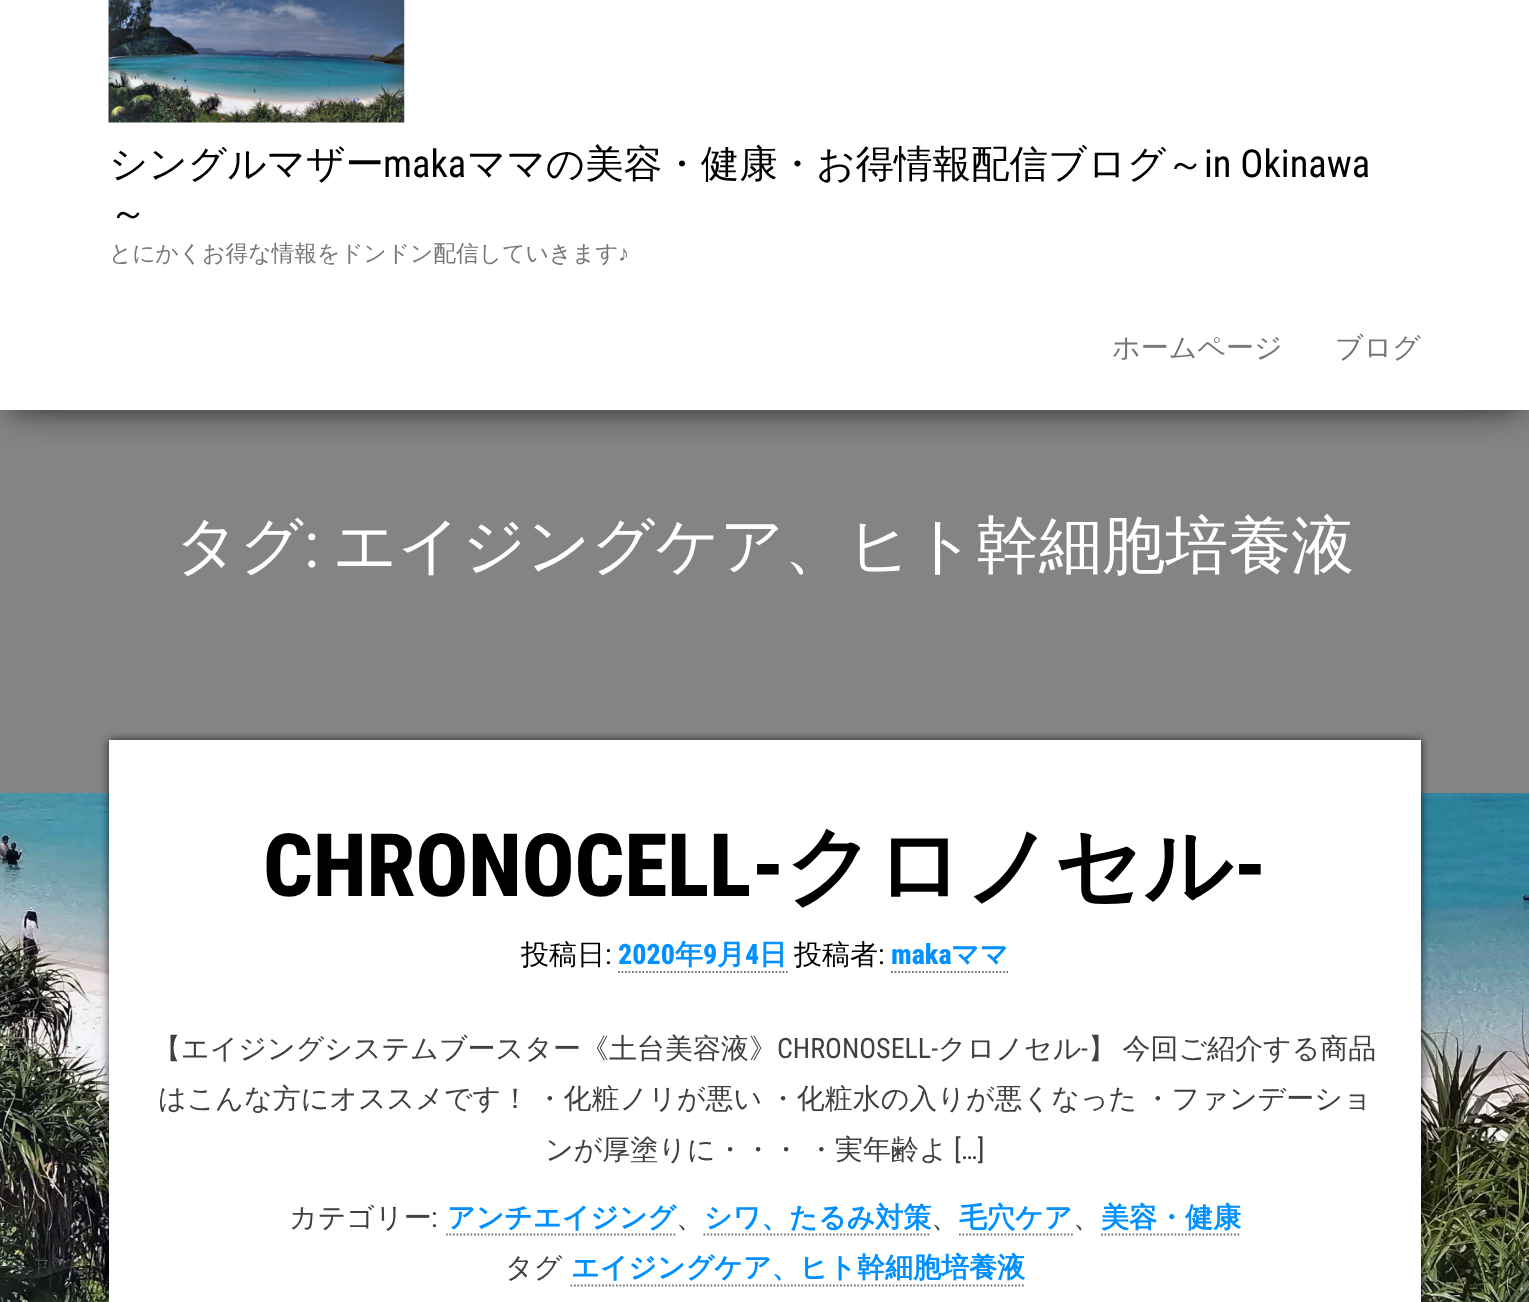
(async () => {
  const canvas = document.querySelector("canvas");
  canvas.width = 1529;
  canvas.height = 1302;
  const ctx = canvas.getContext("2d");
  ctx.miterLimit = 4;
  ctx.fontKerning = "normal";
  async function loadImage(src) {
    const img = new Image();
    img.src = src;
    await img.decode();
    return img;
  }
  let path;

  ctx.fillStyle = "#ffffff";
  ctx.fillRect(0, 0, 1529, 1302);
  ctx.drawImage(await loadImage("img/1.png"), 0, 793, 1529, 509);
  ctx.fillStyle = "#848484";
  ctx.fillRect(0, 410, 1529, 383);
  ctx.fillStyle = "rgba(0, 0, 0, 0.2)";
  ctx.filter = "blur(9px)";
  ctx.beginPath();
  ctx.rect(9, 23, 1512, 392);
  ctx.fill();
  ctx.filter = "none";
  ctx.fillStyle = "rgba(0, 0, 0, 0.12)";
  ctx.filter = "blur(17.5px)";
  ctx.beginPath();
  ctx.rect(0, 5, 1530, 410);
  ctx.fill();
  ctx.filter = "none";
  ctx.fillStyle = "rgba(0, 0, 0, 0.42)";
  ctx.filter = "blur(17.5px)";
  ctx.beginPath();
  ctx.rect(21, 39, 1488, 367);
  ctx.fill();
  ctx.filter = "none";
  ctx.fillStyle = "#ffffff";
  ctx.fillRect(0, 0, 1529, 410);
  ctx.drawImage(await loadImage("img/2.png"), 108, 0, 297, 123);
  ctx.fillStyle = "rgba(0, 0, 0, 0.75)";
  ctx.filter = "blur(4.5px)";
  ctx.beginPath();
  ctx.rect(109, 740, 1312, 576);
  ctx.fill();
  ctx.filter = "none";
  ctx.fillStyle = "#ffffff";
  ctx.fillRect(109, 740, 1312, 562);
  path = new Path2D("M618 972H787.5");
  ctx.strokeStyle = "#777777";
  ctx.lineWidth = 1.8;
  ctx.setLineDash([1.75, 1.75]);
  ctx.stroke(path);
  path = new Path2D("M891 972H1008");
  ctx.stroke(path);
  path = new Path2D("M446 1234.5H675.5");
  ctx.stroke(path);
  path = new Path2D("M703.5 1234.5H931");
  ctx.stroke(path);
  path = new Path2D("M959 1234.5H1073");
  ctx.stroke(path);
  path = new Path2D("M1101 1234.5H1241");
  ctx.stroke(path);
  path = new Path2D("M570.5 1285.5H1025.5");
  ctx.stroke(path);
  ctx.font = "500 38.5px WenQuanYi Zen Hei";
  ctx.fillStyle = "#000000";
  ctx.fillText("シングルマザー", 109, 177);
  ctx.font = "38.5px Roboto Condensed";
  ctx.fillText("maka", 383, 177);
  ctx.font = "500 38.5px WenQuanYi Zen Hei";
  ctx.fillText("ママの美容・健康・お得情報配信ブログ～", 467, 177);
  ctx.font = "38.5px Roboto Condensed";
  ctx.fillText("in Okinawa", 1204, 177);
  ctx.font = "500 38.5px WenQuanYi Zen Hei";
  ctx.fillText("～", 109, 226);
  ctx.font = "500 22.75px WenQuanYi Zen Hei";
  ctx.fillStyle = "#777777";
  ctx.fillText("とにかくお得な情報をドンドン配信していきます", 109, 261);
  ctx.font = "22.75px Liberation Sans";
  ctx.fillText("♪", 618, 261);
  ctx.font = "500 28px WenQuanYi Zen Hei";
  ctx.fillText("ホームページ", 1112, 357);
  ctx.fillText("ブログ", 1335, 357);
  ctx.font = "500 63px WenQuanYi Zen Hei";
  ctx.fillStyle = "#ffffff";
  ctx.fillText("タグ", 175, 567);
  ctx.font = "63px Roboto Condensed";
  ctx.fillText(":", 304, 567);
  ctx.font = "500 63px WenQuanYi Zen Hei";
  ctx.fillText("エイジングケア、ヒト幹細胞培養液", 333, 567);
  ctx.font = "800 87.5px Roboto Condensed";
  ctx.fillStyle = "#000000";
  ctx.fillText("CHRONOCELL-", 263, 896);
  ctx.font = "bold 87.5px WenQuanYi Zen Hei";
  ctx.fillText("クロノセル", 785, 896);
  ctx.font = "800 87.5px Roboto Condensed";
  ctx.fillText("-", 1233, 896);
  ctx.font = "500 28px WenQuanYi Zen Hei";
  ctx.fillText("投稿日", 521, 964);
  ctx.font = "28px Roboto Condensed";
  ctx.fillText(":", 605, 964);
  ctx.font = "800 28px Roboto Condensed";
  ctx.fillStyle = "#0090ff";
  ctx.fillText("2020", 618, 964);
  ctx.font = "bold 28px WenQuanYi Zen Hei";
  ctx.fillText("年", 675, 964);
  ctx.font = "800 28px Roboto Condensed";
  ctx.fillText("9", 703, 964);
  ctx.font = "bold 28px WenQuanYi Zen Hei";
  ctx.fillText("月", 717, 964);
  ctx.font = "800 28px Roboto Condensed";
  ctx.fillText("4", 745, 964);
  ctx.font = "bold 28px WenQuanYi Zen Hei";
  ctx.fillText("日", 759, 964);
  ctx.font = "500 28px WenQuanYi Zen Hei";
  ctx.fillStyle = "#000000";
  ctx.fillText("投稿者", 794, 964);
  ctx.font = "28px Roboto Condensed";
  ctx.fillText(":", 878, 964);
  ctx.font = "800 28px Roboto Condensed";
  ctx.fillStyle = "#0090ff";
  ctx.fillText("maka", 891, 964);
  ctx.font = "bold 28px WenQuanYi Zen Hei";
  ctx.fillText("ママ", 951, 964);
  ctx.font = "500 28px WenQuanYi Zen Hei";
  ctx.fillStyle = "#404040";
  ctx.fillText("【エイジングシステムブースター《土台美容液》", 153, 1058);
  ctx.font = "28px Roboto Condensed";
  ctx.fillText("CHRONOSELL-", 777, 1058);
  ctx.font = "500 28px WenQuanYi Zen Hei";
  ctx.fillText("クロノセル", 938, 1058);
  ctx.font = "28px Roboto Condensed";
  ctx.fillText("-", 1081, 1058);
  ctx.wordSpacing = "-2px";
  ctx.font = "500 28px WenQuanYi Zen Hei";
  ctx.fillText("】 今回ご紹介する商品", 1088, 1058);
  ctx.fillText("はこんな方にオススメです！ ・化粧ノリが悪い ・化粧水の入りが悪くなった ・ファンデーショ", 158, 1108);
  ctx.wordSpacing = "-1px";
  ctx.fillText("ンが厚塗りに・・・ ・実年齢よ", 545, 1159);
  ctx.wordSpacing = "0px";
  ctx.font = "28px Roboto Condensed";
  ctx.fillText("[…]", 954, 1159);
  ctx.font = "500 28px WenQuanYi Zen Hei";
  ctx.fillText("カテゴリー", 289, 1227);
  ctx.font = "28px Roboto Condensed";
  ctx.fillText(":", 431, 1227);
  ctx.font = "bold 28px WenQuanYi Zen Hei";
  ctx.fillStyle = "#0090ff";
  ctx.fillText("アンチエイジング", 447, 1227);
  ctx.font = "500 28px WenQuanYi Zen Hei";
  ctx.fillStyle = "#404040";
  ctx.fillText("、", 676, 1227);
  ctx.font = "bold 28px WenQuanYi Zen Hei";
  ctx.fillStyle = "#0090ff";
  ctx.fillText("シワ、たるみ対策", 704, 1227);
  ctx.font = "500 28px WenQuanYi Zen Hei";
  ctx.fillStyle = "#404040";
  ctx.fillText("、", 931, 1227);
  ctx.font = "bold 28px WenQuanYi Zen Hei";
  ctx.fillStyle = "#0090ff";
  ctx.fillText("毛穴ケア", 959, 1227);
  ctx.font = "500 28px WenQuanYi Zen Hei";
  ctx.fillStyle = "#404040";
  ctx.fillText("、", 1073, 1227);
  ctx.font = "bold 28px WenQuanYi Zen Hei";
  ctx.fillStyle = "#0090ff";
  ctx.fillText("美容・健康", 1101, 1227);
  ctx.font = "500 28px WenQuanYi Zen Hei";
  ctx.fillStyle = "#404040";
  ctx.fillText("タグ", 505, 1277);
  ctx.font = "bold 28px WenQuanYi Zen Hei";
  ctx.fillStyle = "#0090ff";
  ctx.fillText("エイジングケア、ヒト幹細胞培養液", 571, 1277);
})();
